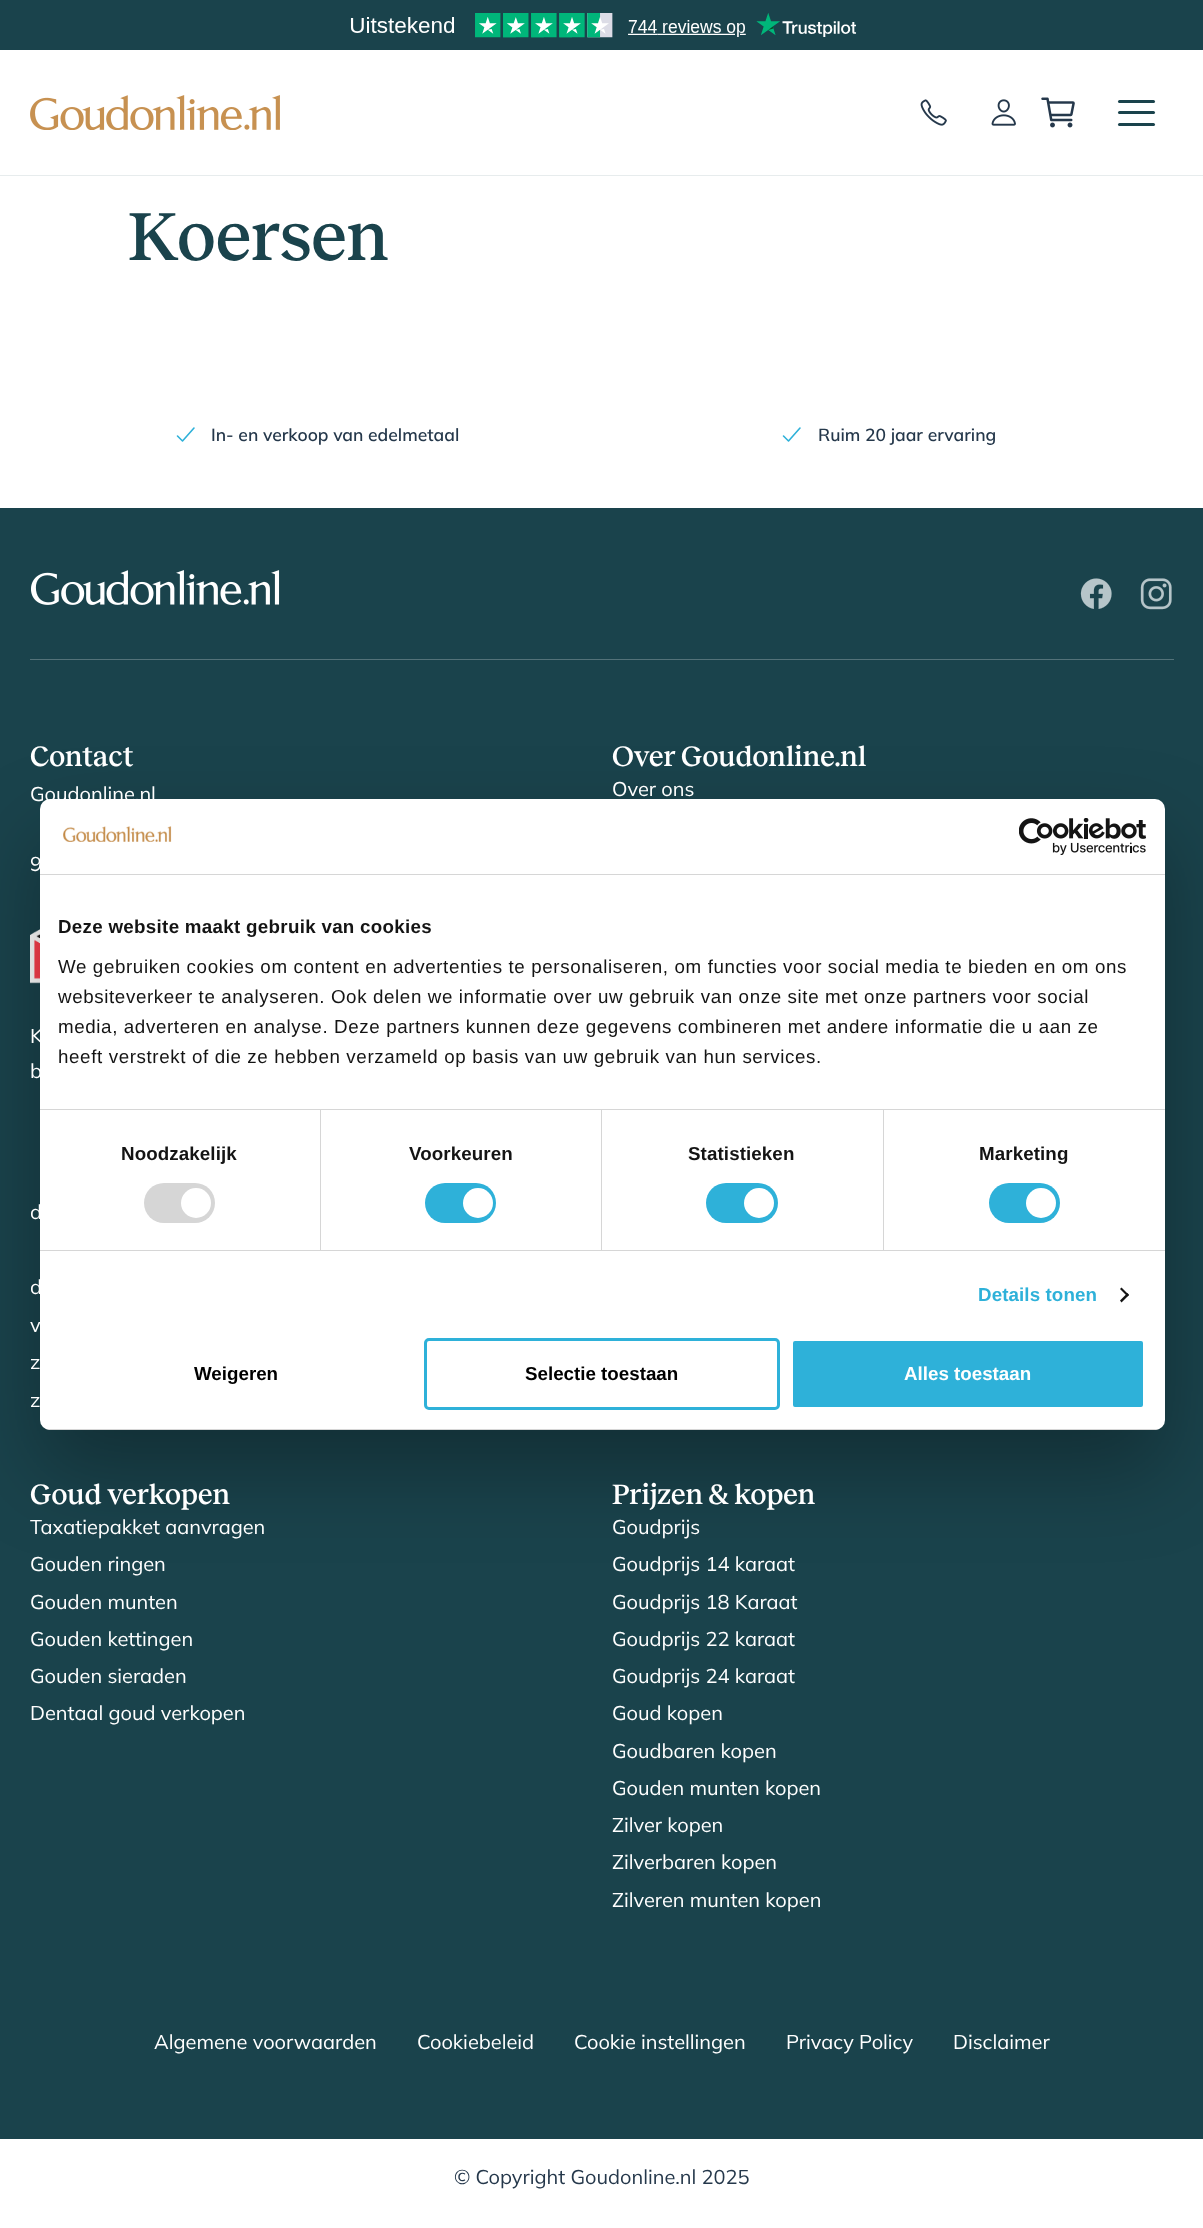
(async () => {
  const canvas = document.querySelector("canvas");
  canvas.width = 1203;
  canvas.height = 2228;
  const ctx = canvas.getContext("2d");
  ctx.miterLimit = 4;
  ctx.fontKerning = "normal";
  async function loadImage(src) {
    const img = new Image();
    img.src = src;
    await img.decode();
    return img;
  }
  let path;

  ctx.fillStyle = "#ffffff";
  ctx.fillRect(0, 0, 1203, 2228);
  ctx.fillStyle = "#e7eced";
  ctx.fillRect(0, 175, 1203, 1);
  ctx.fillStyle = "#1a434c";
  ctx.fillRect(0, 0, 1203, 50);
  ctx.drawImage(await loadImage("img/1.png"), 350, 13, 507, 25);
  ctx.drawImage(await loadImage("img/2.png"), 30, 95, 250, 35);
  ctx.drawImage(await loadImage("img/3.png"), 920, 99, 27, 27);
  ctx.drawImage(await loadImage("img/4.png"), 991, 99, 25, 27);
  ctx.drawImage(await loadImage("img/5.png"), 1041, 97, 34, 31);
  ctx.beginPath();
  ctx.roundRect(1118, 100, 37, 3, 1.5);
  ctx.fill();
  ctx.beginPath();
  ctx.roundRect(1118, 111, 37, 3, 1.5);
  ctx.fill();
  ctx.beginPath();
  ctx.roundRect(1118, 123, 37, 3, 1.5);
  ctx.fill();
  path = new Path2D("M194 428L182.5 441L177.5 436");
  ctx.strokeStyle = "#2eb1d9";
  ctx.lineWidth = 1.6;
  ctx.lineCap = "round";
  ctx.lineJoin = "round";
  ctx.stroke(path);
  path = new Path2D("M800 428L788.5 441L783.5 436");
  ctx.stroke(path);
  ctx.fillRect(0, 508, 1203, 1631);
  ctx.drawImage(await loadImage("img/6.png"), 31, 570, 249, 35);
  ctx.drawImage(await loadImage("img/7.png"), 1080, 578, 32, 31);
  ctx.drawImage(await loadImage("img/8.png"), 1140, 578, 32, 32);
  ctx.fillStyle = "#537279";
  ctx.fillRect(30, 659, 1144, 1);
  ctx.drawImage(await loadImage("img/9.png"), 30, 929, 10, 55);
  ctx.fillStyle = "rgba(0, 0, 0, 0.3)";
  ctx.filter = "blur(42.5px)";
  ctx.beginPath();
  ctx.roundRect(40, 839, 1125, 631, 10);
  ctx.fill();
  ctx.filter = "none";
  ctx.fillStyle = "#ffffff";
  ctx.beginPath();
  ctx.roundRect(40, 799, 1125, 631, 10);
  ctx.fill();
  ctx.fillStyle = "#d6d6d6";
  ctx.fillRect(40, 874, 1125, 1);
  ctx.drawImage(await loadImage("img/10.png"), 63, 826, 109, 16);
  ctx.drawImage(await loadImage("img/11.png"), 1019, 818, 127, 37);
  for (const [x, y, w, h, color] of [
    [40, 1109, 1125, 1, "#d6d6d6"],
    [40, 1250, 1125, 1, "#d6d6d6"],
    [320, 1110, 1, 140, "#d6d6d6"],
  ]) {
    ctx.fillStyle = color;
    ctx.fillRect(x, y, w, h);
  }
  ctx.beginPath();
  ctx.roundRect(144, 1183, 71, 40, 20);
  ctx.fill();
  ctx.fillStyle = "#ffffff";
  ctx.beginPath();
  ctx.arc(196, 1203, 15, 0, Math.PI * 2);
  ctx.fill();
  ctx.fillStyle = "#d6d6d6";
  ctx.fillRect(601, 1110, 1, 140);
  ctx.fillStyle = "#2eb1d9";
  ctx.beginPath();
  ctx.roundRect(425, 1183, 71, 40, 20);
  ctx.fill();
  ctx.fillStyle = "#ffffff";
  ctx.beginPath();
  ctx.arc(478, 1203, 15, 0, Math.PI * 2);
  ctx.fill();
  ctx.fillStyle = "#d6d6d6";
  ctx.fillRect(883, 1110, 1, 140);
  ctx.fillStyle = "#2eb1d9";
  ctx.beginPath();
  ctx.roundRect(706, 1183, 72, 40, 20);
  ctx.fill();
  ctx.fillStyle = "#ffffff";
  ctx.beginPath();
  ctx.arc(759, 1203, 15, 0, Math.PI * 2);
  ctx.fill();
  ctx.fillStyle = "#2eb1d9";
  ctx.beginPath();
  ctx.roundRect(989, 1183, 71, 40, 20);
  ctx.fill();
  ctx.fillStyle = "#ffffff";
  ctx.beginPath();
  ctx.arc(1041, 1203, 15, 0, Math.PI * 2);
  ctx.fill();
  ctx.fillStyle = "#141414";
  path = new Path2D("M1121.5 1287.5L1129 1295L1127.5 1296.5L1120 1289Z");
  ctx.fill(path);
  path = new Path2D("M1127.5 1293L1129 1295L1121.5 1302.5L1120 1300.5Z");
  ctx.fill(path);
  ctx.save();
  ctx.beginPath();
  ctx.roundRect(40, 799, 1125, 631, 10);
  ctx.clip();
  ctx.fillStyle = "#d6d6d6";
  ctx.fillRect(40, 1429, 1125, 1);
  ctx.restore();
  ctx.beginPath();
  ctx.roundRect(425.5, 1339.5, 353, 69, 3.5);
  ctx.lineWidth = 3;
  ctx.lineJoin = "miter";
  ctx.stroke();
  ctx.fillStyle = "#2eb1d9";
  ctx.beginPath();
  ctx.roundRect(791.5, 1339.5, 353, 69, 3.5);
  ctx.fill();
  ctx.strokeStyle = "#ffffff";
  ctx.stroke();
  ctx.font = "500 70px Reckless";
  ctx.fillStyle = "#1a434c";
  ctx.fillText("Koersen", 128, 260);
  ctx.font = "600 17.5px Mulish";
  ctx.fillStyle = "#25384b";
  ctx.fillText("In- en verkoop van edelmetaal", 211, 441);
  ctx.fillText("Ruim 20 jaar ervaring", 818, 441);
  ctx.font = "500 29px Reckless";
  ctx.fillStyle = "#ffffff";
  ctx.fillText("Contact", 30, 766);
  ctx.font = "20px Mulish";
  for (const [text, x, y] of [
    ["Goudonline.nl", 30, 801],
    ["9", 30, 871],
    ["K", 30, 1043],
    ["b", 30, 1078],
    ["d", 30, 1219],
    ["d", 30, 1294],
    ["v", 30, 1332],
    ["z", 30, 1369],
    ["z", 30, 1407],
  ]) {
    ctx.fillText(text, x, y);
  }
  ctx.font = "500 29px Reckless";
  ctx.fillText("Over Goudonline.nl", 612, 766);
  ctx.font = "20px Mulish";
  ctx.fillText("Over ons", 612, 796);
  ctx.font = "500 29px Reckless";
  ctx.fillText("Goud verkopen", 30, 1504);
  ctx.font = "20px Mulish";
  for (const [text, x, y] of [
    ["Taxatiepakket aanvragen", 30, 1534],
    ["Gouden ringen", 30, 1571],
    ["Gouden munten", 30, 1609],
    ["Gouden kettingen", 30, 1646],
    ["Gouden sieraden", 30, 1683],
    ["Dentaal goud verkopen", 30, 1720],
  ]) {
    ctx.fillText(text, x, y);
  }
  ctx.font = "500 29px Reckless";
  ctx.fillText("Prijzen & kopen", 612, 1504);
  ctx.font = "20px Mulish";
  for (const [text, x, y] of [
    ["Goudprijs", 612, 1534],
    ["Goudprijs 14 karaat", 612, 1571],
    ["Goudprijs 18 Karaat", 612, 1609],
    ["Goudprijs 22 karaat", 612, 1646],
    ["Goudprijs 24 karaat", 612, 1683],
    ["Goud kopen", 612, 1720],
    ["Goudbaren kopen", 612, 1758],
    ["Gouden munten kopen", 612, 1795],
    ["Zilver kopen", 612, 1832],
    ["Zilverbaren kopen", 612, 1869],
    ["Zilveren munten kopen", 612, 1907],
    ["Algemene voorwaarden", 154, 2049],
    ["Cookiebeleid", 417, 2049],
    ["Cookie instellingen", 574, 2049],
    ["Privacy Policy", 786, 2049],
    ["Disclaimer", 953, 2049],
  ]) {
    ctx.fillText(text, x, y);
  }
  ctx.fillStyle = "#25384b";
  ctx.fillText("© Copyright Goudonline.nl 2025", 454, 2184);
  ctx.letterSpacing = "0.3px";
  ctx.font = "bold 18.75px Liberation Sans";
  ctx.fillStyle = "#141414";
  ctx.fillText("Deze website maakt gebruik van cookies", 58, 933);
  ctx.letterSpacing = "0.62px";
  ctx.font = "18.75px Liberation Sans";
  for (const [text, x, y] of [
    ["We gebruiken cookies om content en advertenties te personaliseren, om functies voor social media te bieden en om ons", 58, 973],
    ["websiteverkeer te analyseren. Ook delen we informatie over uw gebruik van onze site met onze partners voor social", 58, 1003],
    ["media, adverteren en analyse. Deze partners kunnen deze gegevens combineren met andere informatie die u aan ze", 58, 1033],
    ["heeft verstrekt of die ze hebben verzameld op basis van uw gebruik van hun services.", 58, 1063],
  ]) {
    ctx.fillText(text, x, y);
  }
  ctx.letterSpacing = "0.1px";
  ctx.font = "bold 18.75px Liberation Sans";
  for (const [text, x, y] of [
    ["Noodzakelijk", 121, 1160],
    ["Voorkeuren", 409, 1160],
    ["Statistieken", 688, 1160],
    ["Marketing", 979, 1160],
  ]) {
    ctx.fillText(text, x, y);
  }
  ctx.fillStyle = "#2eb1d9";
  ctx.fillText("Details tonen", 978, 1301);
  ctx.letterSpacing = "0px";
  ctx.fillStyle = "#000000";
  ctx.fillText("Weigeren", 194, 1380);
  ctx.fillText("Selectie toestaan", 525, 1380);
  ctx.fillStyle = "#ffffff";
  ctx.fillText("Alles toestaan", 904, 1380);
})();
